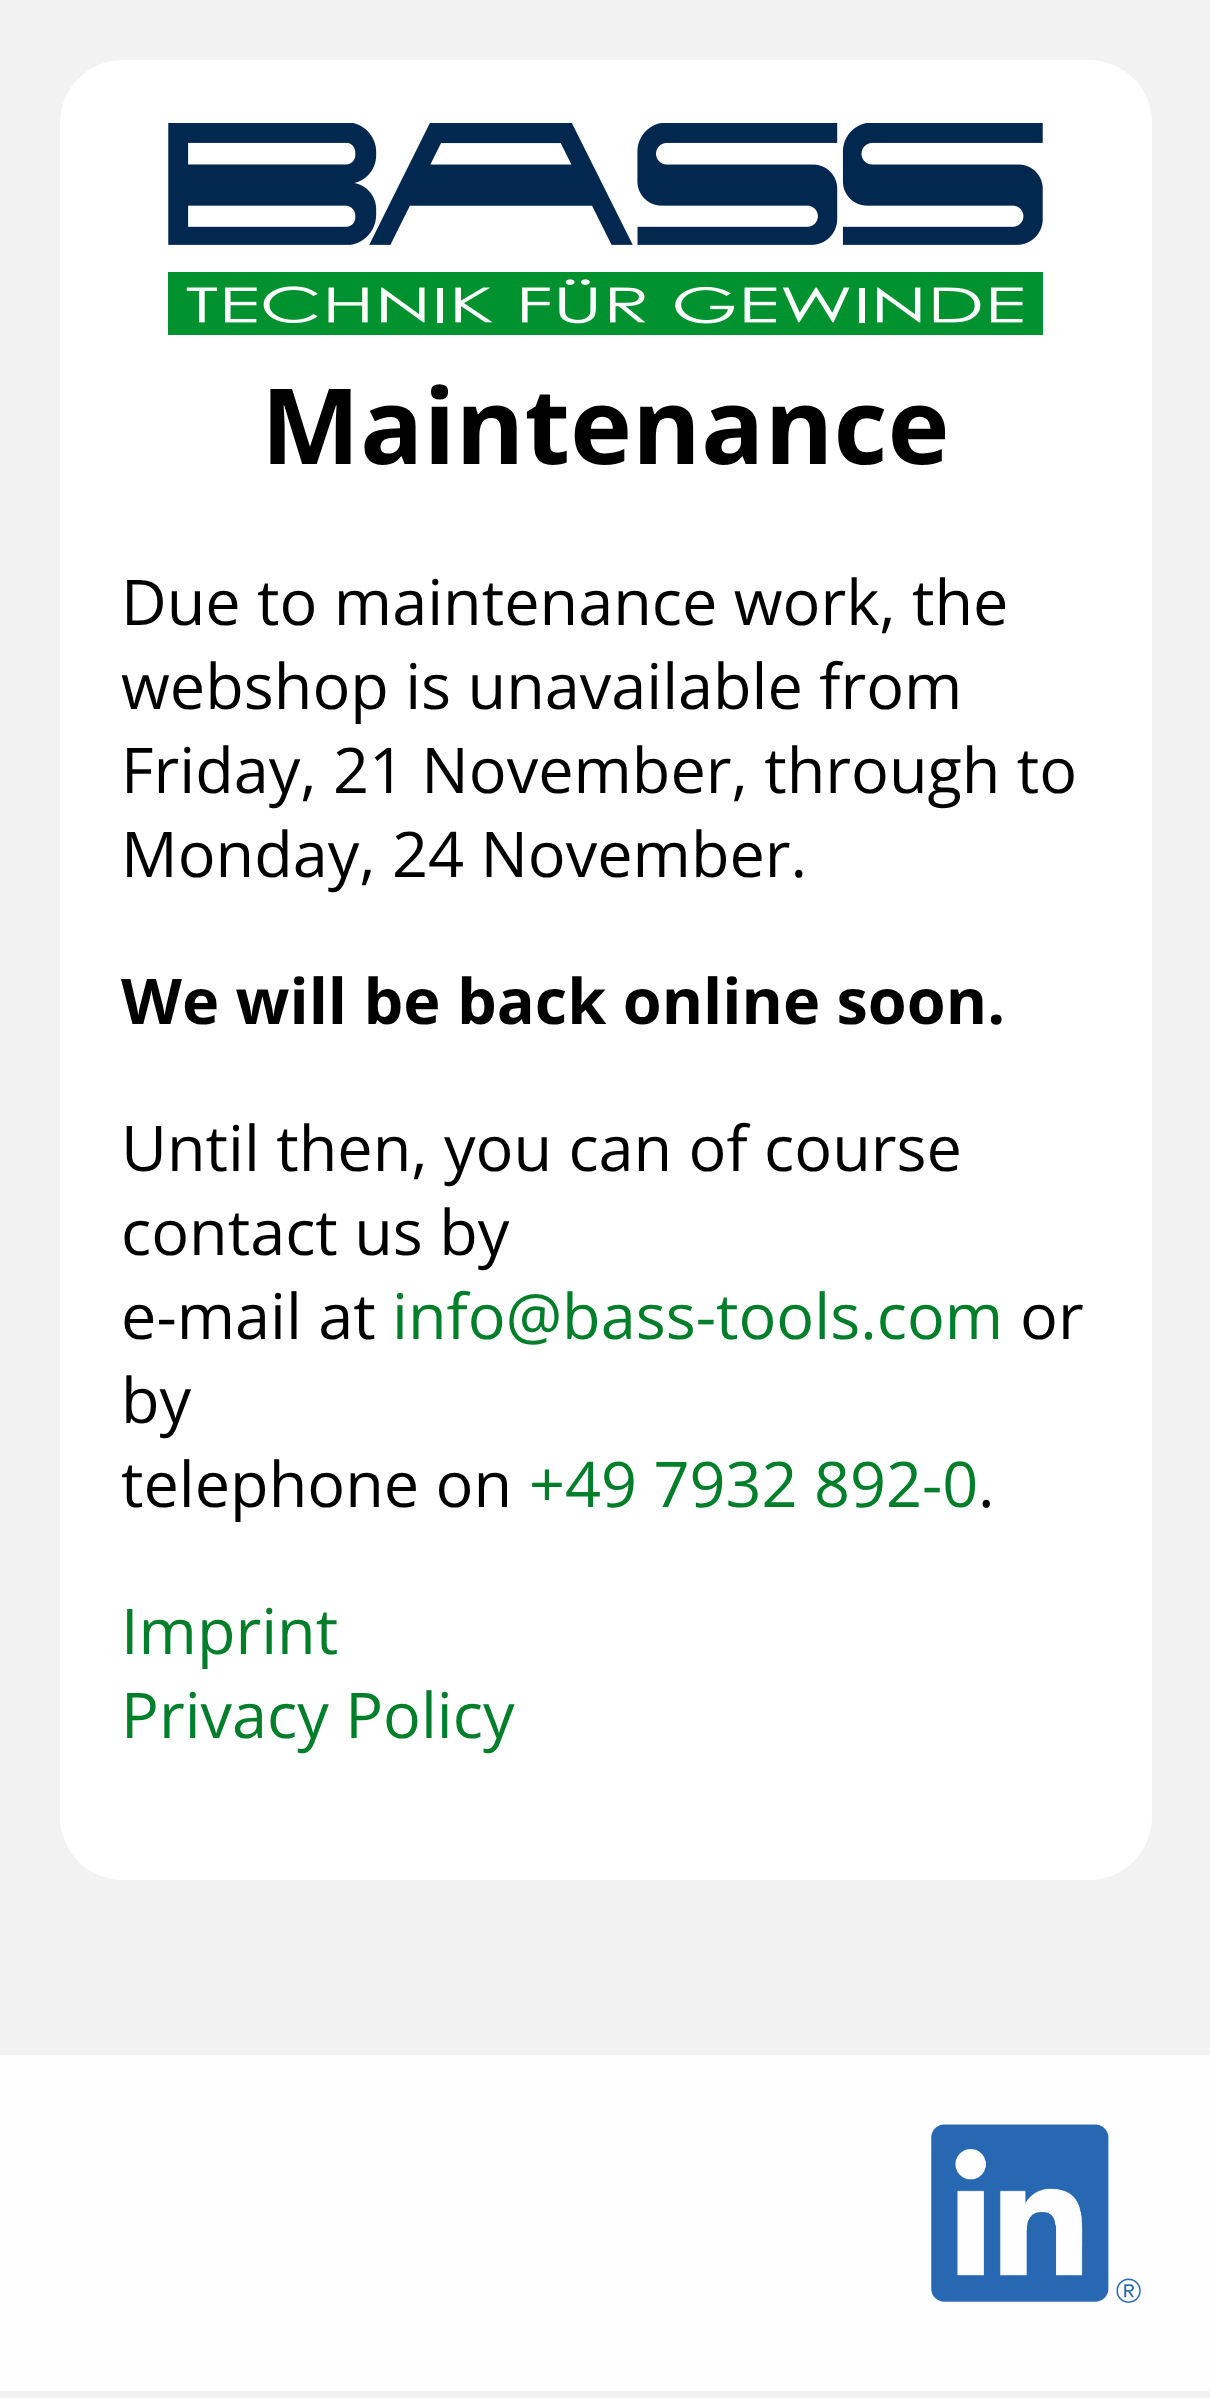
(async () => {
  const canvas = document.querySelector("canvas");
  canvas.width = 1210;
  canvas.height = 2398;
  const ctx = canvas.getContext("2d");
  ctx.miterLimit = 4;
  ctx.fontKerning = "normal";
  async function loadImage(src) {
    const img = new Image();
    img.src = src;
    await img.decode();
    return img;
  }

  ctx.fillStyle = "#f2f2f2";
  ctx.fillRect(0, 0, 1210, 2398);
  ctx.fillStyle = "#ffffff";
  ctx.beginPath();
  ctx.roundRect(60, 60, 1092, 1820, 63);
  ctx.fill();
  ctx.drawImage(await loadImage("img/1.png"), 168, 123, 875, 212);
  ctx.fillStyle = "#fefefe";
  ctx.fillRect(0, 2055, 1210, 336);
  ctx.drawImage(await loadImage("img/2.png"), 931, 2124, 210, 179);
  ctx.font = "bold 105px Open Sans";
  ctx.fillStyle = "#000000";
  ctx.fillText("Maintenance", 261, 464);
  ctx.font = "63px Open Sans";
  for (const [text, x, y] of [
    ["Due to maintenance work, the", 121, 625],
    ["webshop is unavailable from", 121, 709],
    ["Friday, 21 November, through to", 121, 793],
    ["Monday, 24 November.", 121, 877],
  ]) {
    ctx.fillText(text, x, y);
  }
  ctx.font = "bold 63px Open Sans";
  ctx.fillText("We will be back online soon.", 121, 1024);
  ctx.font = "63px Open Sans";
  for (const [text, x, y] of [
    ["Until then, you can of course", 121, 1171],
    ["contact us by", 121, 1255],
    ["e-mail at", 121, 1339],
  ]) {
    ctx.fillText(text, x, y);
  }
  ctx.fillStyle = "#007e2a";
  ctx.fillText("info@bass-tools.com", 392, 1339);
  ctx.fillStyle = "#000000";
  for (const [text, x, y] of [
    ["or", 1020, 1339],
    ["by", 121, 1423],
    ["telephone on", 121, 1507],
  ]) {
    ctx.fillText(text, x, y);
  }
  ctx.fillStyle = "#007e2a";
  ctx.fillText("+49 7932 892-0", 529, 1507);
  ctx.fillStyle = "#000000";
  ctx.fillText(".", 978, 1507);
  ctx.fillStyle = "#007e2a";
  ctx.fillText("Imprint", 121, 1654);
  ctx.fillText("Privacy Policy", 121, 1738);
})();
